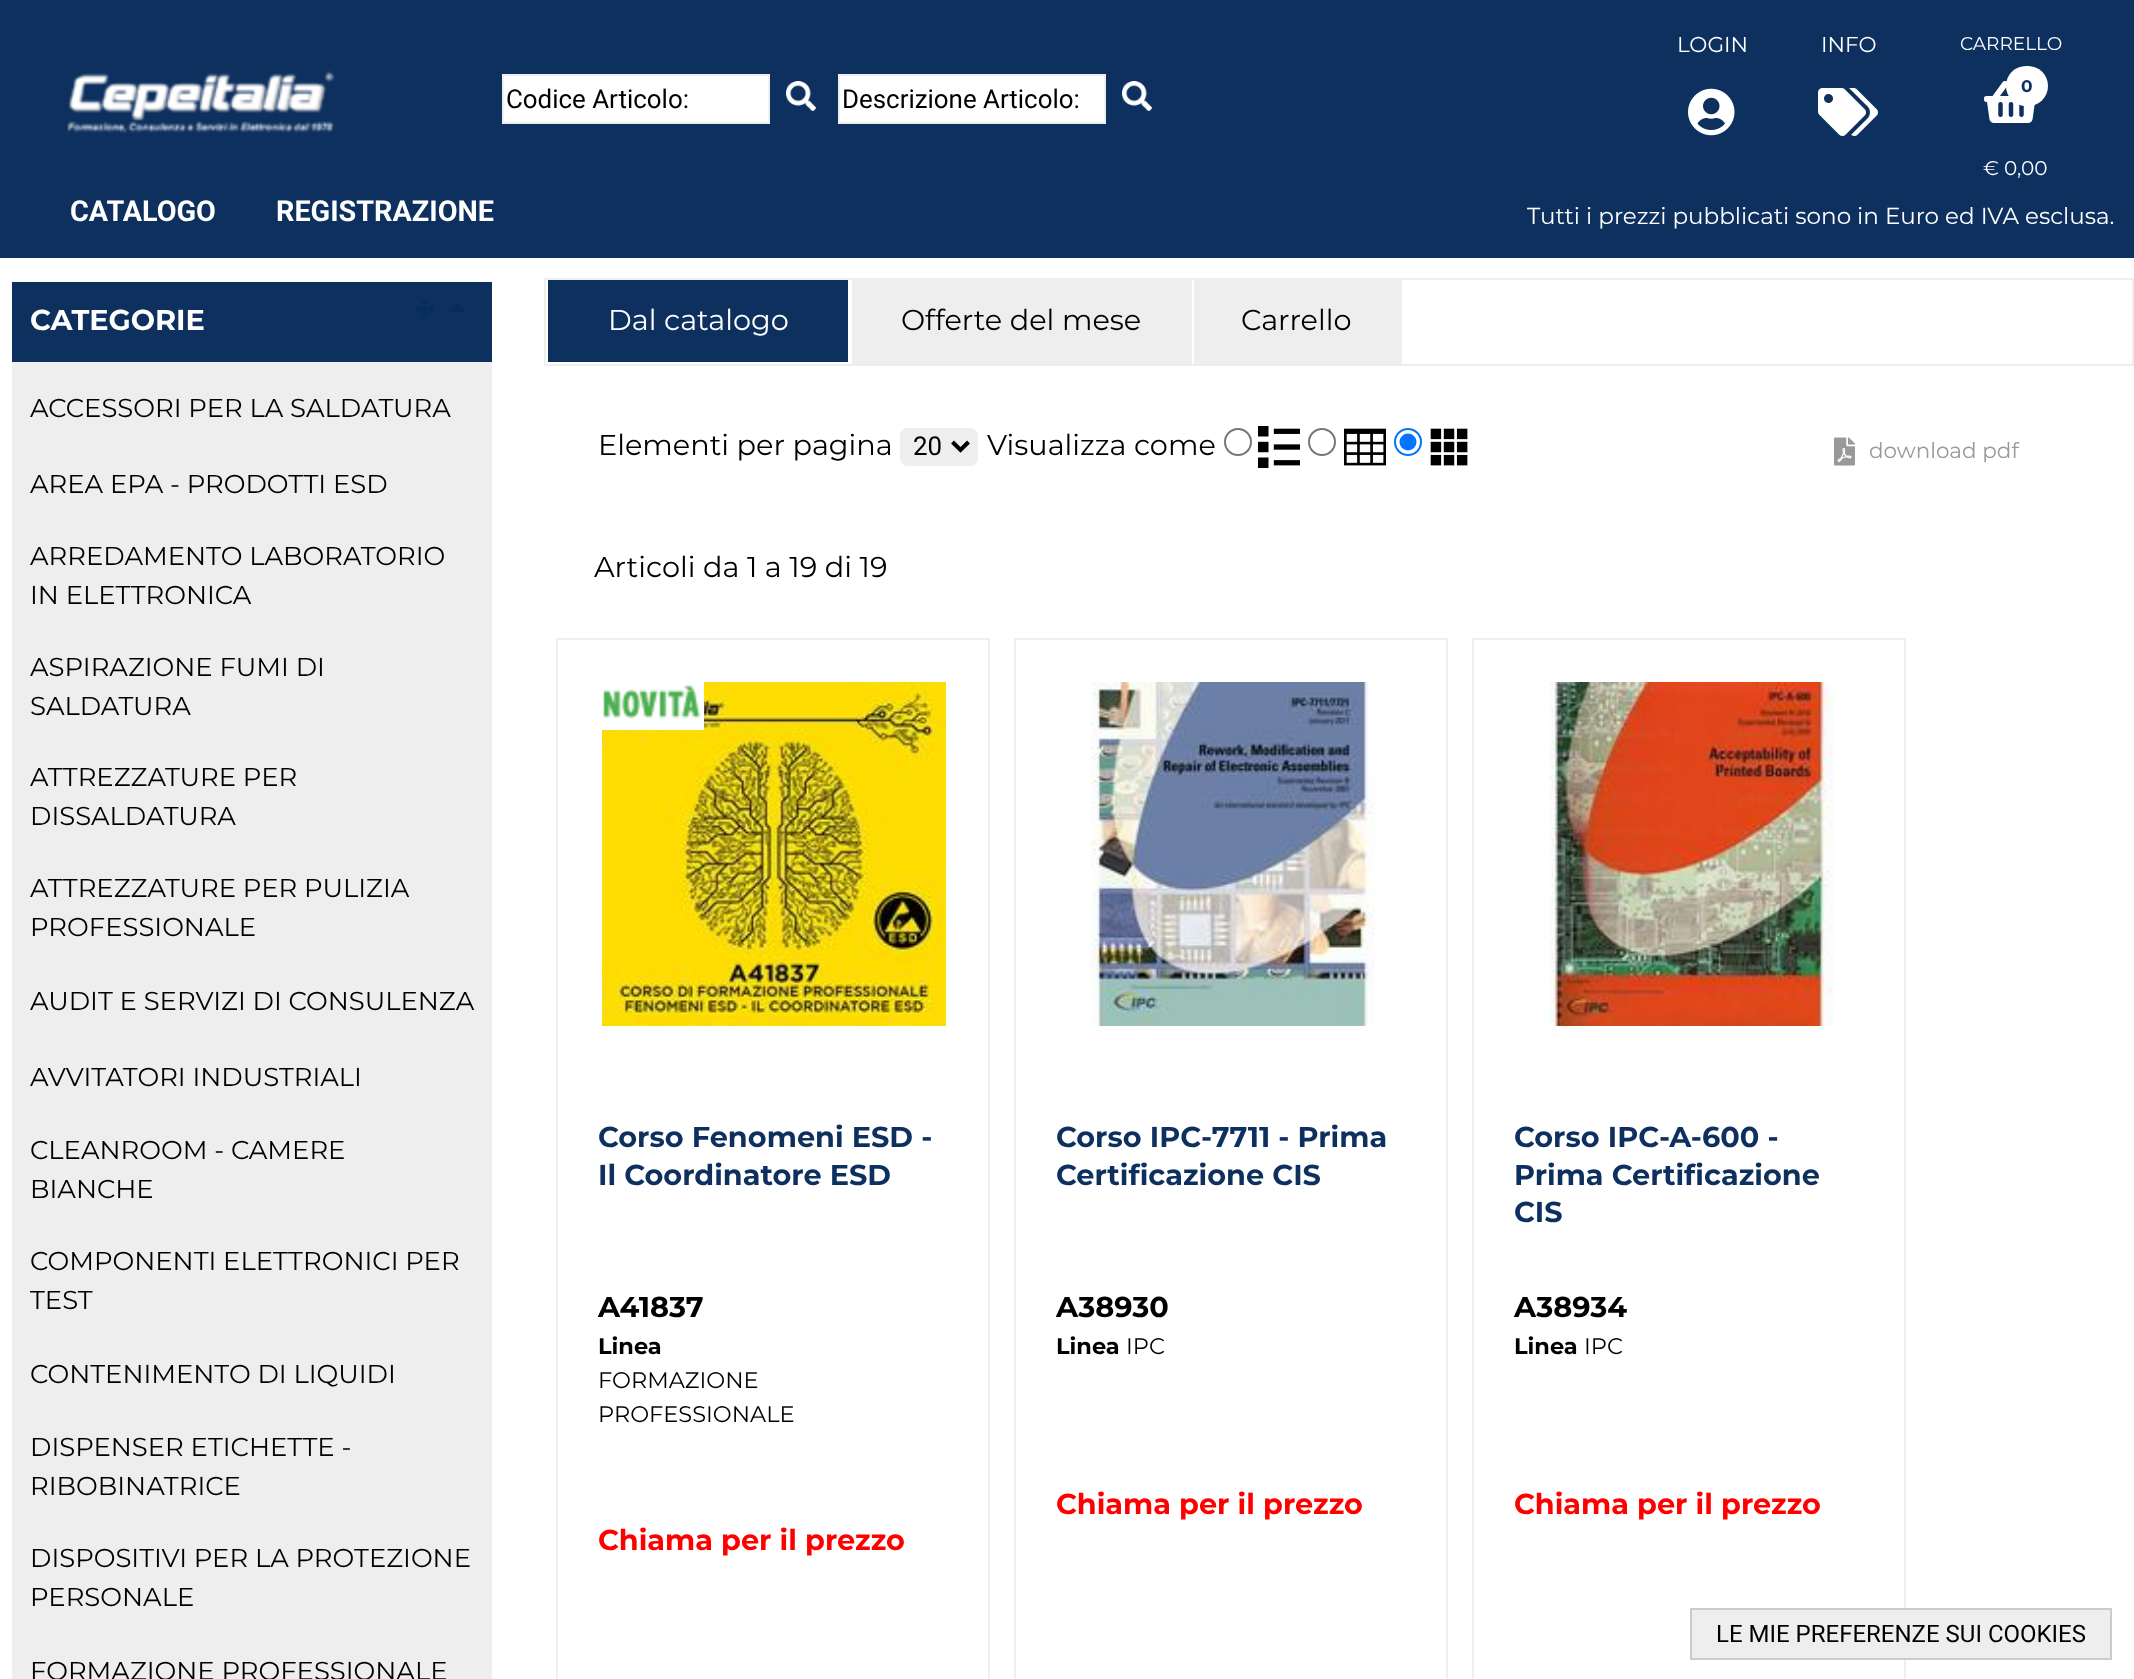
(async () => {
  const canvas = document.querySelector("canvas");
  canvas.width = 2134;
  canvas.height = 1679;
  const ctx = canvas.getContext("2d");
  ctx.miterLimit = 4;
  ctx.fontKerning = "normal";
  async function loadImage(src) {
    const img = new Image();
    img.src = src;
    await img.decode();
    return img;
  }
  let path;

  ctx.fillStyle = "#ffffff";
  ctx.fillRect(0, 0, 2134, 1679);
  ctx.fillStyle = "#0d305f";
  ctx.fillRect(0, 0, 2134, 258);
  ctx.drawImage(await loadImage("img/1.png"), 67, 71, 268, 62);
  ctx.fillStyle = "#ffffff";
  ctx.beginPath();
  ctx.rect(503, 75, 266, 48);
  ctx.fill();
  ctx.strokeStyle = "#eeeeee";
  ctx.lineWidth = 2;
  ctx.stroke();
  ctx.drawImage(await loadImage("img/2.png"), 786, 81, 30, 30);
  ctx.beginPath();
  ctx.rect(839, 75, 266, 48);
  ctx.fill();
  ctx.stroke();
  ctx.drawImage(await loadImage("img/3.png"), 1122, 81, 30, 30);
  ctx.drawImage(await loadImage("img/4.png"), 1688, 88, 47, 48);
  ctx.drawImage(await loadImage("img/5.png"), 1818, 88, 60, 48);
  ctx.drawImage(await loadImage("img/6.png"), 1984, 81, 51, 42);
  ctx.beginPath();
  ctx.roundRect(2006, 66, 42, 40, 20);
  ctx.fill();
  ctx.fillStyle = "#0d305f";
  ctx.fillRect(12, 282, 480, 80);
  ctx.drawImage(await loadImage("img/7.png"), 416, 300, 18, 18);
  ctx.drawImage(await loadImage("img/8.png"), 450, 304, 14, 8);
  ctx.fillStyle = "#eeeeee";
  ctx.fillRect(12, 362, 480, 1317);
  ctx.strokeRect(545, 279, 1588, 86);
  for (const [x, y, w, h, color] of [
    [548, 280, 300, 82, "#0d305f"],
    [852, 280, 340, 84, "#eeeeee"],
    [1194, 280, 208, 84, "#eeeeee"],
  ]) {
    ctx.fillStyle = color;
    ctx.fillRect(x, y, w, h);
  }
  ctx.beginPath();
  ctx.roundRect(901, 429, 76, 36, 7);
  ctx.fill();
  ctx.stroke();
  path = new Path2D("M952.5 442L960.5 450L968.5 442");
  ctx.strokeStyle = "#000000";
  ctx.lineWidth = 4;
  ctx.stroke(path);
  ctx.beginPath();
  ctx.arc(1238, 442, 13, 0, Math.PI * 2);
  ctx.strokeStyle = "#767676";
  ctx.lineWidth = 2;
  ctx.stroke();
  ctx.drawImage(await loadImage("img/9.png"), 1258, 426, 42, 42);
  ctx.beginPath();
  ctx.arc(1322, 442, 13, 0, Math.PI * 2);
  ctx.stroke();
  ctx.drawImage(await loadImage("img/10.png"), 1344, 428, 42, 38);
  ctx.beginPath();
  ctx.arc(1408, 442, 13, 0, Math.PI * 2);
  ctx.strokeStyle = "#0075ff";
  ctx.stroke();
  ctx.fillStyle = "#0075ff";
  ctx.beginPath();
  ctx.arc(1408, 442, 8.5, 0, Math.PI * 2);
  ctx.fill();
  ctx.drawImage(await loadImage("img/11.png"), 1430, 428, 38, 38);
  ctx.drawImage(await loadImage("img/12.png"), 1834, 437, 21, 29);
  ctx.strokeStyle = "#eeeeee";
  ctx.strokeRect(557, 639, 432, 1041);
  ctx.drawImage(await loadImage("img/13.png"), 602, 682, 344, 344);
  ctx.drawImage(await loadImage("img/14.png"), 602, 682, 102, 48);
  ctx.strokeRect(1015, 639, 432, 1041);
  ctx.drawImage(await loadImage("img/15.png"), 1091, 682, 284, 344);
  ctx.strokeRect(1473, 639, 432, 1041);
  ctx.drawImage(await loadImage("img/16.png"), 1549, 682, 285, 344);
  ctx.fillStyle = "#eeeeee";
  ctx.beginPath();
  ctx.rect(1691, 1609, 420, 50);
  ctx.fill();
  ctx.strokeStyle = "#cccccc";
  ctx.stroke();
  ctx.font = "bold 28.75px Roboto";
  ctx.fillStyle = "#ffffff";
  ctx.fillText("CATALOGO", 70, 221);
  ctx.fillText("REGISTRAZIONE", 276, 221);
  ctx.font = "25.9px Roboto";
  ctx.fillStyle = "#000000";
  ctx.fillText("Codice Articolo:", 506, 108);
  ctx.fillText("Descrizione Articolo:", 842, 108);
  ctx.font = "21.5px Montserrat";
  ctx.fillStyle = "#ffffff";
  ctx.fillText("LOGIN", 1677, 52);
  ctx.fillText("INFO", 1821, 52);
  ctx.font = "18.5px Montserrat";
  ctx.fillText("CARRELLO", 1960, 50);
  ctx.font = "bold 17px Montserrat";
  ctx.fillStyle = "#0d305f";
  ctx.fillText("0", 2021, 92);
  ctx.font = "20px Montserrat";
  ctx.fillStyle = "#ffffff";
  ctx.fillText("€ 0,00", 1983, 175);
  ctx.font = "23.05px Montserrat";
  ctx.fillText("Tutti i prezzi pubblicati sono in Euro ed IVA esclusa.", 1527, 224);
  ctx.font = "bold 28.75px Montserrat";
  ctx.fillText("CATEGORIE", 30, 330);
  ctx.font = "25.9px Montserrat";
  ctx.fillStyle = "#000000";
  for (const [text, x, y] of [
    ["ACCESSORI PER LA SALDATURA", 30, 417],
    ["AREA EPA - PRODOTTI ESD", 30, 493],
    ["ARREDAMENTO LABORATORIO", 30, 565],
    ["IN ELETTRONICA", 30, 604],
    ["ASPIRAZIONE FUMI DI", 30, 676],
    ["SALDATURA", 30, 715],
    ["ATTREZZATURE PER", 30, 786],
    ["DISSALDATURA", 30, 825],
    ["ATTREZZATURE PER PULIZIA", 30, 897],
    ["PROFESSIONALE", 30, 936],
    ["AUDIT E SERVIZI DI CONSULENZA", 30, 1010],
    ["AVVITATORI INDUSTRIALI", 30, 1086],
    ["CLEANROOM - CAMERE", 30, 1159],
    ["BIANCHE", 30, 1198],
    ["COMPONENTI ELETTRONICI PER", 30, 1270],
    ["TEST", 30, 1309],
    ["CONTENIMENTO DI LIQUIDI", 30, 1383],
    ["DISPENSER ETICHETTE -", 30, 1456],
    ["RIBOBINATRICE", 30, 1495],
    ["DISPOSITIVI PER LA PROTEZIONE", 30, 1567],
    ["PERSONALE", 30, 1606],
    ["FORMAZIONE PROFESSIONALE", 30, 1680],
  ]) {
    ctx.fillText(text, x, y);
  }
  ctx.font = "28.75px Montserrat";
  ctx.fillStyle = "#ffffff";
  ctx.fillText("Dal catalogo", 608, 330);
  ctx.fillStyle = "#000000";
  for (const [text, x, y] of [
    ["Offerte del mese", 901, 330],
    ["Carrello", 1241, 330],
    ["Elementi per pagina", 598, 455],
  ]) {
    ctx.fillText(text, x, y);
  }
  ctx.font = "25.9px Roboto";
  ctx.fillText("20", 913, 455);
  ctx.font = "28.75px Montserrat";
  ctx.fillText("Visualizza come", 987, 455);
  ctx.fillText("Articoli da 1 a 19 di 19", 594, 577);
  ctx.font = "21.5px Montserrat";
  ctx.fillStyle = "#999999";
  ctx.fillText("download pdf", 1869, 458);
  ctx.font = "bold 28.75px Montserrat";
  ctx.fillStyle = "#0d305f";
  ctx.fillText("Corso Fenomeni ESD -", 598, 1147);
  ctx.fillText("Il Coordinatore ESD", 598, 1185);
  ctx.fillStyle = "#000000";
  ctx.fillText("A41837", 598, 1317);
  ctx.font = "bold 22.5px Montserrat";
  ctx.fillText("Linea", 598, 1354);
  ctx.font = "22.5px Montserrat";
  ctx.fillText("FORMAZIONE", 598, 1388);
  ctx.fillText("PROFESSIONALE", 598, 1422);
  ctx.font = "bold 28.75px Montserrat";
  ctx.fillStyle = "#ff0000";
  ctx.fillText("Chiama per il prezzo", 598, 1550);
  ctx.fillStyle = "#0d305f";
  ctx.fillText("Corso IPC-7711 - Prima", 1056, 1147);
  ctx.fillText("Certificazione CIS", 1056, 1185);
  ctx.fillStyle = "#000000";
  ctx.fillText("A38930", 1056, 1317);
  ctx.font = "bold 22.5px Montserrat";
  ctx.fillText("Linea", 1056, 1354);
  ctx.font = "22.5px Montserrat";
  ctx.fillText("IPC", 1126, 1354);
  ctx.font = "bold 28.75px Montserrat";
  ctx.fillStyle = "#ff0000";
  ctx.fillText("Chiama per il prezzo", 1056, 1514);
  ctx.fillStyle = "#0d305f";
  for (const [text, x, y] of [
    ["Corso IPC-A-600 -", 1514, 1147],
    ["Prima Certificazione", 1514, 1185],
    ["CIS", 1514, 1222],
  ]) {
    ctx.fillText(text, x, y);
  }
  ctx.fillStyle = "#000000";
  ctx.fillText("A38934", 1514, 1317);
  ctx.font = "bold 22.5px Montserrat";
  ctx.fillText("Linea", 1514, 1354);
  ctx.font = "22.5px Montserrat";
  ctx.fillText("IPC", 1584, 1354);
  ctx.font = "bold 28.75px Montserrat";
  ctx.fillStyle = "#ff0000";
  ctx.fillText("Chiama per il prezzo", 1514, 1514);
  ctx.font = "24px Roboto";
  ctx.fillStyle = "#000000";
  ctx.fillText("LE MIE PREFERENZE SUI COOKIES", 1716, 1642);
})();
